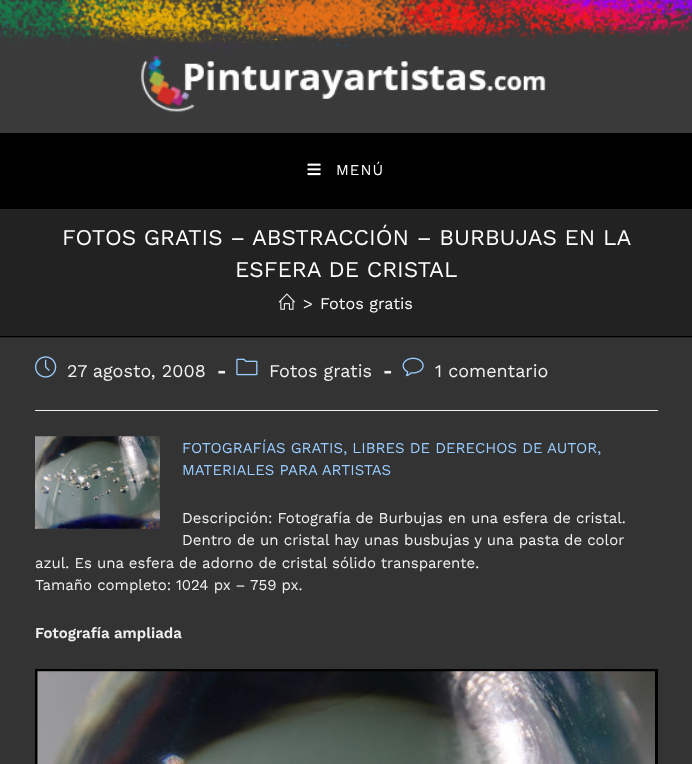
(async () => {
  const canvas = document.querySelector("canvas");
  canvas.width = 692;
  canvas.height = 764;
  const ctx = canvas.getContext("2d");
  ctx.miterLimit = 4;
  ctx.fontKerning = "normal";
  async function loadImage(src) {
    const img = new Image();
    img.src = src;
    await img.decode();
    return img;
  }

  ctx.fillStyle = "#333333";
  ctx.fillRect(0, 0, 692, 764);
  ctx.fillStyle = "#000000";
  ctx.fillRect(0, 133, 692, 76);
  ctx.fillStyle = "#3a3a3a";
  ctx.fillRect(0, 51, 692, 82);
  ctx.drawImage(await loadImage("img/1.png"), 0, 0, 692, 51);
  ctx.drawImage(await loadImage("img/2.png"), 140, 43, 406, 70);
  ctx.drawImage(await loadImage("img/3.png"), 307, 163, 14, 13);
  ctx.fillStyle = "#222222";
  ctx.fillRect(0, 209, 692, 129);
  ctx.fillStyle = "#000000";
  ctx.fillRect(0, 336, 692, 1);
  ctx.drawImage(await loadImage("img/4.png"), 278, 293, 17, 17);
  ctx.fillStyle = "#f1f1f1";
  ctx.fillRect(35, 410, 623, 1);
  ctx.drawImage(await loadImage("img/5.png"), 35, 356, 22, 22);
  ctx.drawImage(await loadImage("img/6.png"), 236, 358, 22, 18);
  ctx.drawImage(await loadImage("img/7.png"), 402, 357, 22, 20);
  ctx.drawImage(await loadImage("img/8.png"), 35, 436, 125, 93);
  ctx.strokeStyle = "#000000";
  ctx.lineWidth = 3;
  ctx.strokeRect(36.5, 670.5, 620, 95);
  ctx.drawImage(await loadImage("img/9.png"), 37, 671, 618, 93);
  ctx.letterSpacing = "1px";
  ctx.font = "15px Work Sans";
  ctx.fillStyle = "#ffffff";
  ctx.fillText("MENÚ", 336, 175);
  ctx.letterSpacing = "0px";
  ctx.font = "22.5px Work Sans";
  ctx.fillText("FOTOS GRATIS – ABSTRACCIÓN – BURBUJAS EN LA", 62, 245);
  ctx.fillText("ESFERA DE CRISTAL", 235, 277);
  ctx.font = "16.25px Work Sans";
  ctx.fillText(">", 303, 309);
  ctx.fillText("Fotos gratis", 320, 309);
  ctx.font = "18px Work Sans";
  ctx.fillStyle = "#f1f1f1";
  ctx.fillText("27 agosto, 2008", 67, 377);
  ctx.font = "bold 18px Work Sans";
  ctx.fillText("-", 217, 377);
  ctx.font = "18px Work Sans";
  ctx.fillText("Fotos gratis", 269, 377);
  ctx.font = "bold 18px Work Sans";
  ctx.fillText("-", 383, 377);
  ctx.font = "18px Work Sans";
  ctx.fillText("1 comentario", 435, 377);
  ctx.font = "15px Work Sans";
  ctx.fillStyle = "#99ccff";
  ctx.fillText("FOTOGRAFÍAS GRATIS, LIBRES DE DERECHOS DE AUTOR,", 182, 453);
  ctx.fillText("MATERIALES PARA ARTISTAS", 182, 475);
  ctx.fillStyle = "#f1f1f1";
  for (const [text, x, y] of [
    ["Descripción: Fotografía de Burbujas en una esfera de cristal.", 182, 523],
    ["Dentro de un cristal hay unas busbujas y una pasta de color", 182, 545],
    ["azul. Es una esfera de adorno de cristal sólido transparente.", 35, 568],
    ["Tamaño completo: 1024 px – 759 px.", 35, 590],
  ]) {
    ctx.fillText(text, x, y);
  }
  ctx.font = "600 15px Work Sans";
  ctx.fillText("Fotografía ampliada", 35, 638);
})();
